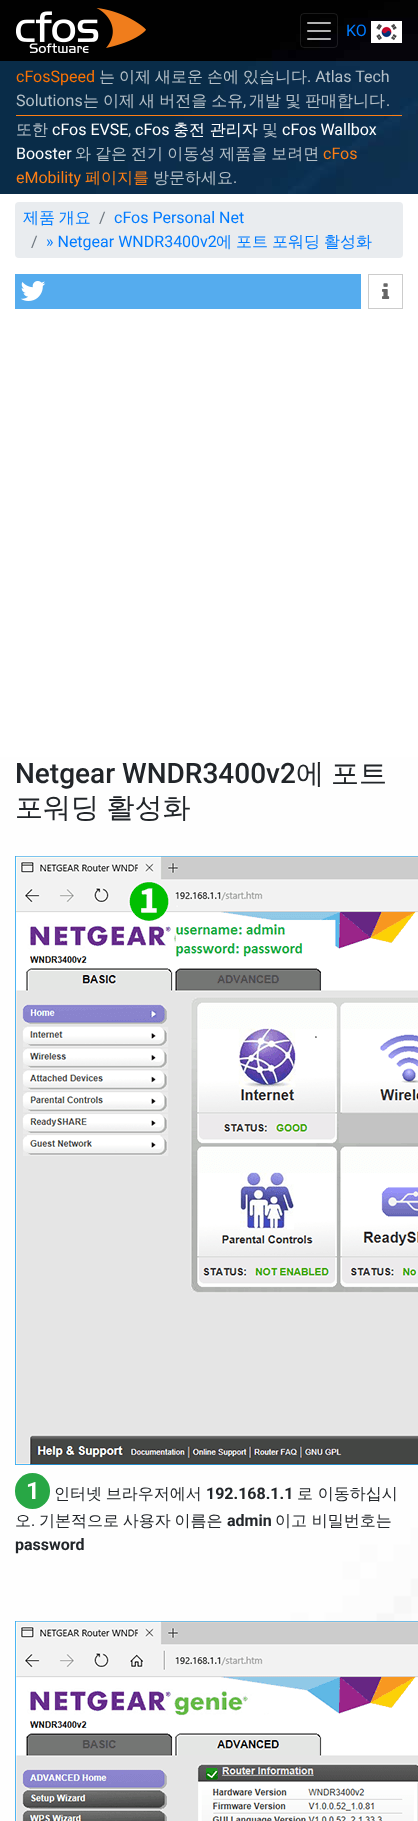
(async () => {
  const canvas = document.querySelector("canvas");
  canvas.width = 418;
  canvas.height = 1821;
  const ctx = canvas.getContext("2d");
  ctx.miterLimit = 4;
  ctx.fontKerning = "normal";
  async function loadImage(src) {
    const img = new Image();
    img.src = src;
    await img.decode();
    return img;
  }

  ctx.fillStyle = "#ffffff";
  ctx.fillRect(0, 0, 418, 1821);
  ctx.drawImage(await loadImage("img/1.png"), 0, 0, 418, 194);
  ctx.drawImage(await loadImage("img/2.png"), 16, 8, 130, 45);
  ctx.beginPath();
  ctx.roundRect(300.5, 13.5, 37, 34, 3.5);
  ctx.strokeStyle = "rgba(255, 255, 255, 0.1)";
  ctx.stroke();
  ctx.drawImage(await loadImage("img/3.png"), 307, 22, 24, 18);
  ctx.drawImage(await loadImage("img/4.png"), 371, 21, 31, 22);
  ctx.fillStyle = "rgba(29, 145, 240, 0.3)";
  ctx.fillRect(0, 61, 418, 133);
  ctx.fillStyle = "#fd7e14";
  ctx.fillRect(16, 115, 386, 1);
  ctx.fillStyle = "#e9ecef";
  ctx.beginPath();
  ctx.roundRect(15, 202, 388, 56, 4);
  ctx.fill();
  ctx.fillStyle = "#55acee";
  ctx.fillRect(15, 274, 346, 35);
  ctx.drawImage(await loadImage("img/5.png"), 20, 281, 26, 20);
  ctx.strokeStyle = "#cccccc";
  ctx.strokeRect(368.5, 274.5, 34, 34);
  ctx.drawImage(await loadImage("img/6.png"), 382, 283, 8, 16);
  ctx.drawImage(await loadImage("img/7.png"), 0, 757, 418, 1064);
  ctx.drawImage(await loadImage("img/8.png"), 15, 856, 403, 609);
  ctx.fillStyle = "#28a745";
  ctx.beginPath();
  ctx.roundRect(15, 1473, 35, 36, 17.5);
  ctx.fill();
  ctx.drawImage(await loadImage("img/9.png"), 15, 1621, 403, 200);
  ctx.font = "16px Roboto";
  ctx.fillStyle = "#007bff";
  ctx.fillText("KO", 346, 36);
  ctx.fillStyle = "#fb7204";
  ctx.fillText("cFosSpeed", 16, 82);
  ctx.font = "500 16px WenQuanYi Zen Hei";
  ctx.fillStyle = "#b5c0c8";
  for (const [text, x, y] of [
    ["는", 99, 82],
    ["이제", 119, 82],
    ["새로운", 155, 82],
    ["손에", 207, 82],
    ["있습니다", 243, 82],
  ]) {
    ctx.fillText(text, x, y);
  }
  ctx.font = "16px Roboto";
  ctx.fillText(". Atlas Tech", 307, 82);
  ctx.fillText("Solutions", 16, 106);
  ctx.wordSpacing = "-0.75px";
  ctx.font = "500 16px WenQuanYi Zen Hei";
  ctx.fillText("는 이제 새 버전을 소유", 83, 106);
  ctx.wordSpacing = "0px";
  ctx.font = "16px Roboto";
  ctx.fillText(",", 243, 106);
  ctx.wordSpacing = "-0.75px";
  ctx.font = "500 16px WenQuanYi Zen Hei";
  ctx.fillText("개발 및 판매합니다", 249, 106);
  ctx.wordSpacing = "0px";
  ctx.font = "16px Roboto";
  ctx.fillText(".", 386, 106);
  ctx.font = "500 16px WenQuanYi Zen Hei";
  ctx.fillText("또한", 16, 135);
  ctx.font = "16px Roboto";
  ctx.fillStyle = "#ffffff";
  ctx.fillText("cFos EVSE", 52, 135);
  ctx.fillStyle = "#b5c0c8";
  ctx.fillText(",", 128, 135);
  ctx.fillStyle = "#ffffff";
  ctx.fillText("cFos", 135, 135);
  ctx.font = "500 16px WenQuanYi Zen Hei";
  ctx.fillText("충전 관리자", 173, 135);
  ctx.fillStyle = "#b5c0c8";
  ctx.fillText("및", 262, 135);
  ctx.font = "16px Roboto";
  ctx.fillStyle = "#ffffff";
  ctx.fillText("cFos Wallbox", 282, 135);
  ctx.fillText("Booster", 16, 159);
  ctx.wordSpacing = "-0.75px";
  ctx.font = "500 16px WenQuanYi Zen Hei";
  ctx.fillStyle = "#b5c0c8";
  ctx.fillText("와 같은 전기 이동성 제품을 보려면", 75, 159);
  ctx.wordSpacing = "0px";
  ctx.font = "16px Roboto";
  ctx.fillStyle = "#fd7e14";
  ctx.fillText("cFos", 323, 159);
  ctx.fillText("eMobility", 16, 183);
  ctx.font = "500 16px WenQuanYi Zen Hei";
  ctx.fillText("페이지를", 85, 183);
  ctx.fillStyle = "#b5c0c8";
  ctx.fillText("방문하세요", 153, 183);
  ctx.font = "16px Roboto";
  ctx.fillText(".", 233, 183);
  ctx.wordSpacing = "-1px";
  ctx.font = "500 16px WenQuanYi Zen Hei";
  ctx.fillStyle = "#007bff";
  ctx.fillText("제품 개요", 23, 223);
  ctx.wordSpacing = "0px";
  ctx.font = "16px Roboto";
  ctx.fillStyle = "#6c757d";
  ctx.fillText("/", 99, 223);
  ctx.fillStyle = "#007bff";
  ctx.fillText("cFos Personal Net", 114, 223);
  ctx.fillStyle = "#6c757d";
  ctx.fillText("/", 31, 247);
  ctx.fillStyle = "#007bff";
  ctx.fillText("» Netgear WNDR3400v2", 46, 247);
  ctx.font = "500 16px WenQuanYi Zen Hei";
  for (const [text, x, y] of [
    ["에", 216, 247],
    ["포트", 236, 247],
    ["포워딩", 272, 247],
    ["활성화", 324, 247],
  ]) {
    ctx.fillText(text, x, y);
  }
  ctx.font = "500 28px Roboto";
  ctx.fillStyle = "#212529";
  ctx.fillText("Netgear WNDR3400v2", 15, 783);
  ctx.font = "500 28px WenQuanYi Zen Hei";
  ctx.fillText("에", 296, 783);
  ctx.fillText("포트", 331, 783);
  ctx.wordSpacing = "-1px";
  ctx.fillText("포워딩 활성화", 15, 817);
  ctx.wordSpacing = "0px";
  ctx.font = "bold 24px Roboto";
  ctx.fillStyle = "#ffffff";
  ctx.fillText("1", 26, 1499);
  ctx.wordSpacing = "-1px";
  ctx.font = "500 16px WenQuanYi Zen Hei";
  ctx.fillStyle = "#212529";
  ctx.fillText("인터넷 브라우저에서", 54, 1499);
  ctx.wordSpacing = "0px";
  ctx.font = "bold 16px Roboto";
  ctx.fillText("192.168.1.1", 206, 1499);
  ctx.font = "500 16px WenQuanYi Zen Hei";
  ctx.fillText("로 이동하십시", 297, 1499);
  ctx.fillText("오", 15, 1526);
  ctx.font = "16px Roboto";
  ctx.fillText(".", 31, 1526);
  ctx.wordSpacing = "-1px";
  ctx.font = "500 16px WenQuanYi Zen Hei";
  ctx.fillText("기본적으로 사용자 이름은", 39, 1526);
  ctx.wordSpacing = "0px";
  ctx.font = "bold 16px Roboto";
  ctx.fillText("admin", 227, 1526);
  ctx.font = "500 16px WenQuanYi Zen Hei";
  ctx.fillText("이고 비밀번호는", 275, 1526);
  ctx.font = "bold 16px Roboto";
  ctx.fillText("password", 15, 1550);
})();
